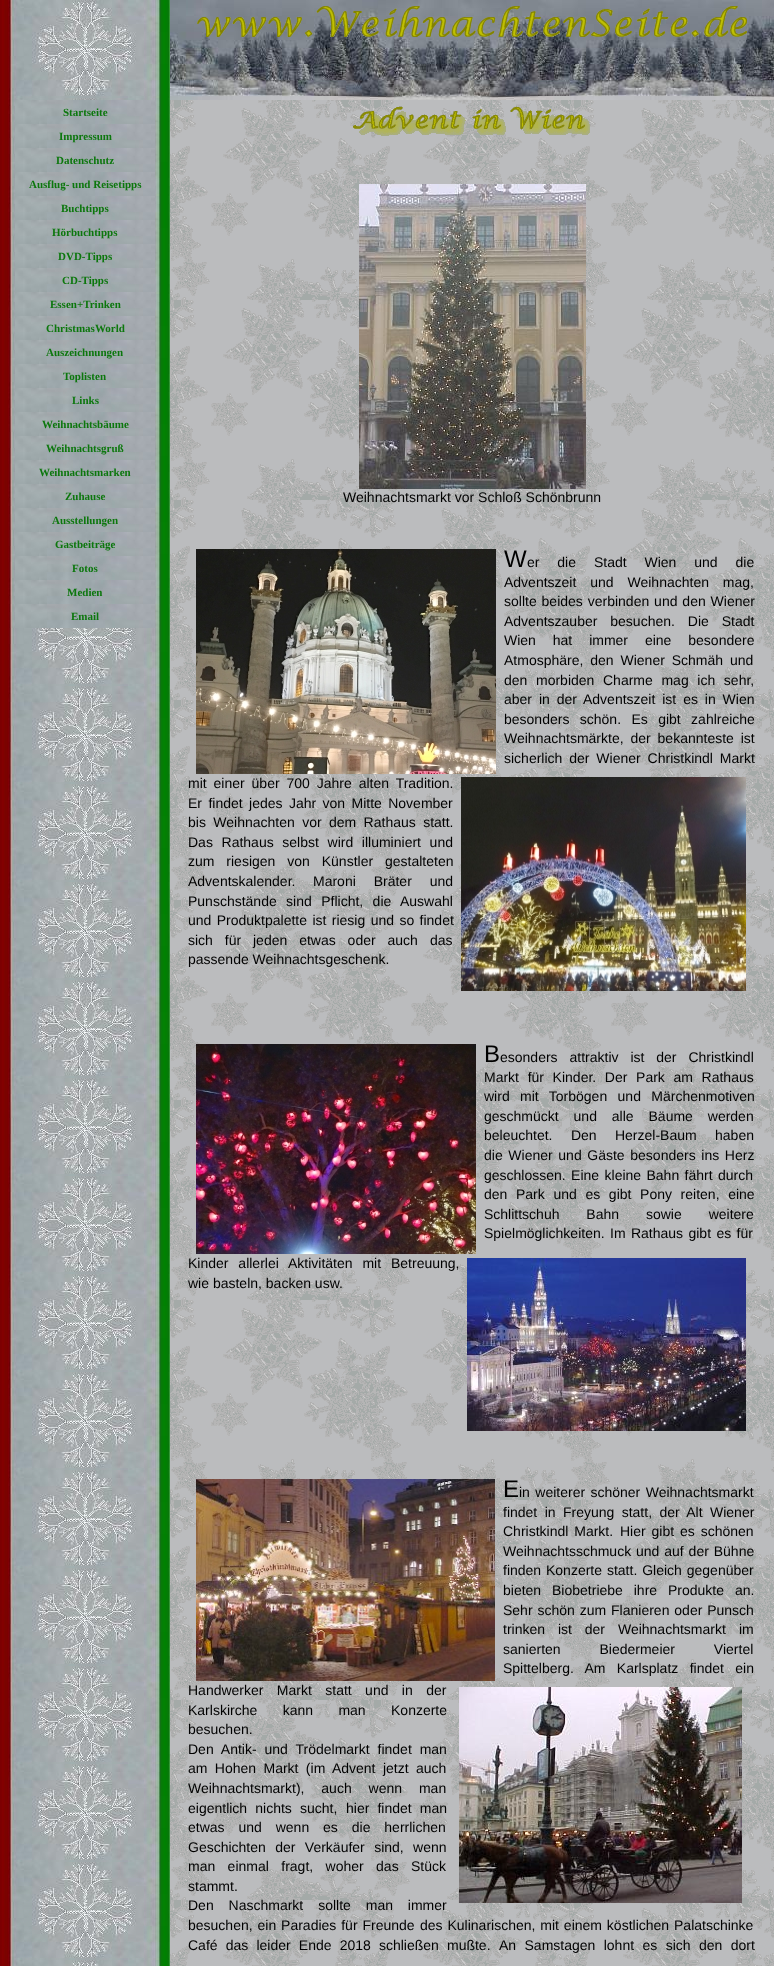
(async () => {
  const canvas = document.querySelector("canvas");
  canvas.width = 774;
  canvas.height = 1966;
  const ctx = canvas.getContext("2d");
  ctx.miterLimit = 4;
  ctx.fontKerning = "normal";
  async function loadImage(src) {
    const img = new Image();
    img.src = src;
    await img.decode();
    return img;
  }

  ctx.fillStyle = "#ffffff";
  ctx.fillRect(0, 0, 774, 1966);
  ctx.drawImage(await loadImage("img/2.png"), 0, 0, 170, 1966);
  ctx.drawImage(await loadImage("img/1.png"), 15, 100, 140, 24);
  ctx.drawImage(await loadImage("img/1.png"), 15, 124, 140, 24);
  ctx.drawImage(await loadImage("img/1.png"), 15, 148, 140, 24);
  ctx.drawImage(await loadImage("img/1.png"), 15, 172, 140, 24);
  ctx.drawImage(await loadImage("img/1.png"), 15, 196, 140, 24);
  ctx.drawImage(await loadImage("img/1.png"), 15, 220, 140, 24);
  ctx.drawImage(await loadImage("img/1.png"), 15, 244, 140, 24);
  ctx.drawImage(await loadImage("img/1.png"), 15, 268, 140, 24);
  ctx.drawImage(await loadImage("img/1.png"), 15, 292, 140, 24);
  ctx.drawImage(await loadImage("img/1.png"), 15, 316, 140, 24);
  ctx.drawImage(await loadImage("img/1.png"), 15, 340, 140, 24);
  ctx.drawImage(await loadImage("img/1.png"), 15, 364, 140, 24);
  ctx.drawImage(await loadImage("img/1.png"), 15, 388, 140, 24);
  ctx.drawImage(await loadImage("img/1.png"), 15, 412, 140, 24);
  ctx.drawImage(await loadImage("img/1.png"), 15, 436, 140, 24);
  ctx.drawImage(await loadImage("img/1.png"), 15, 460, 140, 24);
  ctx.drawImage(await loadImage("img/1.png"), 15, 484, 140, 24);
  ctx.drawImage(await loadImage("img/1.png"), 15, 508, 140, 24);
  ctx.drawImage(await loadImage("img/1.png"), 15, 532, 140, 24);
  ctx.drawImage(await loadImage("img/1.png"), 15, 556, 140, 24);
  ctx.drawImage(await loadImage("img/1.png"), 15, 580, 140, 24);
  ctx.drawImage(await loadImage("img/1.png"), 15, 604, 140, 24);
  ctx.drawImage(await loadImage("img/3.png"), 170, 0, 604, 100);
  ctx.drawImage(await loadImage("img/4.png"), 197, 6, 550, 31);
  ctx.drawImage(await loadImage("img/5.png"), 170, 100, 604, 1866);
  ctx.drawImage(await loadImage("img/6.png"), 353, 106, 237, 30);
  ctx.drawImage(await loadImage("img/7.png"), 359, 184, 227, 305);
  ctx.drawImage(await loadImage("img/8.png"), 196, 549, 300, 225);
  ctx.drawImage(await loadImage("img/9.png"), 461, 777, 285, 214);
  ctx.drawImage(await loadImage("img/10.png"), 196, 1044, 280, 210);
  ctx.drawImage(await loadImage("img/11.png"), 467, 1258, 279, 173);
  ctx.drawImage(await loadImage("img/12.png"), 196, 1479, 299, 202);
  ctx.drawImage(await loadImage("img/13.png"), 459, 1687, 283, 216);
  ctx.font = "bold 11px Liberation Serif";
  ctx.fillStyle = "#0c770d";
  for (const [text, x, y] of [
    ["Startseite", 63, 116],
    ["Impressum", 59, 140],
    ["Datenschutz", 56, 164],
    ["Ausflug- und Reisetipps", 29, 188],
    ["Buchtipps", 61, 212],
    ["Hörbuchtipps", 52, 236],
    ["DVD-Tipps", 58, 260],
    ["CD-Tipps", 62, 284],
    ["Essen+Trinken", 50, 308],
    ["ChristmasWorld", 46, 332],
    ["Auszeichnungen", 46, 356],
    ["Toplisten", 63, 380],
    ["Links", 72, 404],
    ["Weihnachtsbäume", 42, 428],
    ["Weihnachtsgruß", 46, 452],
    ["Weihnachtsmarken", 39, 476],
    ["Zuhause", 65, 500],
    ["Ausstellungen", 52, 524],
    ["Gastbeiträge", 55, 548],
    ["Fotos", 72, 572],
    ["Medien", 67, 596],
    ["Email", 71, 620],
  ]) {
    ctx.fillText(text, x, y);
  }
  ctx.font = "14px Liberation Sans";
  ctx.fillStyle = "#000000";
  ctx.fillText("Weihnachtsmarkt vor Schloß Schönbrunn", 343, 502);
  ctx.font = "24px Liberation Sans";
  ctx.fillText("W", 504, 567);
  ctx.wordSpacing = "14px";
  ctx.font = "14px Liberation Sans";
  ctx.fillText("er die Stadt Wien und die", 527, 567);
  ctx.wordSpacing = "10px";
  ctx.fillText("Adventszeit und Weihnachten mag,", 504, 587);
  ctx.wordSpacing = "1px";
  ctx.fillText("sollte beides verbinden und den Wiener", 504, 606);
  ctx.wordSpacing = "9px";
  ctx.fillText("Adventszauber besuchen. Die Stadt", 504, 626);
  ctx.wordSpacing = "13px";
  ctx.fillText("Wien hat immer eine besondere", 504, 645);
  ctx.wordSpacing = "3px";
  ctx.fillText("Atmosphäre, den Wiener Schmäh und", 504, 665);
  ctx.wordSpacing = "4.75px";
  ctx.fillText("den morbiden Charme mag ich sehr,", 504, 685);
  ctx.wordSpacing = "3px";
  ctx.fillText("aber in der", 504, 704);
  ctx.fillText("Adventszeit ist es in Wien", 583, 704);
  ctx.wordSpacing = "6.5px";
  ctx.fillText("besonders schön. Es gibt zahlreiche", 504, 724);
  ctx.wordSpacing = "3px";
  for (const [text, x, y] of [
    ["Weihnachtsmärkte, der bekannteste ist", 504, 743],
    ["sicherlich der Wiener Christkindl Markt", 504, 763],
    ["mit einer über 700 Jahre alten Tradition.", 188, 788],
  ]) {
    ctx.fillText(text, x, y);
  }
  ctx.wordSpacing = "2.5px";
  ctx.fillText("Er findet jedes Jahr von Mitte November", 188, 808);
  ctx.wordSpacing = "3.5px";
  ctx.fillText("bis Weihnachten vor dem Rathaus statt.", 188, 827);
  ctx.wordSpacing = "4.75px";
  ctx.fillText("Das Rathaus selbst wird illuminiert und", 188, 847);
  ctx.wordSpacing = "8px";
  ctx.fillText("zum riesigen von Künstler gestalteten", 188, 866);
  ctx.wordSpacing = "0px";
  ctx.fillText("Adventskalender.", 188, 886);
  ctx.wordSpacing = "14px";
  ctx.fillText("Maroni Bräter und", 313, 886);
  ctx.wordSpacing = "5.5px";
  ctx.fillText("Punschstände sind Pflicht, die Auswahl", 188, 906);
  ctx.wordSpacing = "1.5px";
  ctx.fillText("und Produktpalette ist riesig und so findet", 188, 925);
  ctx.wordSpacing = "8px";
  ctx.fillText("sich für jeden etwas oder auch", 188, 945);
  ctx.wordSpacing = "0px";
  ctx.fillText("das", 430, 945);
  ctx.fillText("passende Weihnachtsgeschenk.", 188, 964);
  ctx.font = "24px Liberation Sans";
  ctx.fillText("B", 484, 1062);
  ctx.wordSpacing = "8px";
  ctx.font = "14px Liberation Sans";
  ctx.fillText("esonders attraktiv ist der Christkindl", 500, 1062);
  ctx.wordSpacing = "4.75px";
  ctx.fillText("Markt für Kinder. Der Park am Rathaus", 484, 1082);
  ctx.wordSpacing = "0px";
  ctx.fillText("wird", 484, 1101);
  ctx.wordSpacing = "6.5px";
  ctx.fillText("mit Torbögen und Märchenmotiven", 520, 1101);
  ctx.wordSpacing = "11px";
  ctx.fillText("geschmückt und alle Bäume werden", 484, 1121);
  ctx.wordSpacing = "14.5px";
  ctx.fillText("beleuchtet. Den Herzel-Baum haben", 484, 1140);
  ctx.wordSpacing = "1.75px";
  ctx.fillText("die Wiener und Gäste besonders ins Herz", 484, 1160);
  ctx.wordSpacing = "1.5px";
  ctx.fillText("geschlossen. Eine kleine Bahn fährt durch", 484, 1180);
  ctx.wordSpacing = "4.75px";
  ctx.fillText("den Park und es gibt Pony reiten, eine", 484, 1199);
  ctx.wordSpacing = "23px";
  ctx.fillText("Schlittschuh Bahn sowie weitere", 484, 1219);
  ctx.wordSpacing = "0px";
  ctx.fillText("Spielmöglichkeiten.", 484, 1238);
  ctx.wordSpacing = "1.5px";
  ctx.fillText("Im Rathaus gibt es für", 610, 1238);
  ctx.wordSpacing = "6px";
  ctx.fillText("Kinder allerlei Aktivitäten mit Betreuung,", 188, 1268);
  ctx.wordSpacing = "0px";
  ctx.fillText("wie basteln, backen usw.", 188, 1288);
  ctx.font = "24px Liberation Sans";
  ctx.fillText("E", 503, 1497);
  ctx.wordSpacing = "1.5px";
  ctx.font = "14px Liberation Sans";
  ctx.fillText("in weiterer schöner Weihnachtsmarkt", 519, 1497);
  ctx.wordSpacing = "3.5px";
  ctx.fillText("findet in Freyung statt, der Alt Wiener", 503, 1517);
  ctx.wordSpacing = "2px";
  ctx.fillText("Christkindl Markt.", 503, 1536);
  ctx.fillText("Hier gibt es schönen", 620, 1536);
  ctx.wordSpacing = "1px";
  ctx.fillText("Weihnachtsschmuck und auf der Bühne", 503, 1556);
  ctx.wordSpacing = "0px";
  ctx.fillText("finden", 503, 1575);
  ctx.wordSpacing = "1px";
  ctx.fillText("Konzerte statt. Gleich gegenüber", 546, 1575);
  ctx.wordSpacing = "7px";
  ctx.fillText("bieten Biobetriebe ihre Produkte an.", 503, 1595);
  ctx.wordSpacing = "1px";
  ctx.fillText("Sehr schön zum Flanieren oder Punsch", 503, 1615);
  ctx.wordSpacing = "9px";
  ctx.fillText("trinken ist der Weihnachtsmarkt", 503, 1634);
  ctx.wordSpacing = "0px";
  ctx.fillText("im", 739, 1634);
  ctx.wordSpacing = "35px";
  ctx.fillText("sanierten Biedermeier Viertel", 503, 1654);
  ctx.wordSpacing = "7.5px";
  ctx.fillText("Spittelberg. Am Karlsplatz findet ein", 503, 1673);
  ctx.wordSpacing = "9.5px";
  ctx.fillText("Handwerker Markt statt und in der", 188, 1695);
  ctx.wordSpacing = "21.5px";
  ctx.fillText("Karlskirche kann man Konzerte", 188, 1715);
  ctx.wordSpacing = "0px";
  ctx.fillText("besuchen.", 188, 1734);
  ctx.wordSpacing = "4px";
  ctx.fillText("Den Antik- und Trödelmarkt findet man", 188, 1754);
  ctx.wordSpacing = "3.5px";
  ctx.fillText("am Hohen Markt (im Advent jetzt auch", 188, 1773);
  ctx.wordSpacing = "13px";
  ctx.fillText("Weihnachtsmarkt), auch wenn man", 188, 1793);
  ctx.wordSpacing = "4.25px";
  ctx.fillText("eigentlich nichts sucht,", 188, 1813);
  ctx.fillText("hier findet man", 346, 1813);
  ctx.wordSpacing = "10px";
  ctx.fillText("etwas und wenn es die herrlichen", 188, 1832);
  ctx.wordSpacing = "5.5px";
  ctx.fillText("Geschichten der Verkäufer sind, wenn", 188, 1852);
  ctx.wordSpacing = "8.5px";
  ctx.fillText("man einmal fragt, woher das Stück", 188, 1871);
  ctx.wordSpacing = "0px";
  ctx.fillText("stammt.", 188, 1891);
  ctx.wordSpacing = "11px";
  ctx.fillText("Den Naschmarkt sollte man immer", 188, 1910);
  ctx.wordSpacing = "1px";
  ctx.fillText("besuchen, ein Paradies für Freunde", 188, 1930);
  ctx.fillText("des Kulinarischen, mit einem köstlichen Palatschinke", 420, 1930);
  ctx.wordSpacing = "4.25px";
  ctx.fillText("Café das leider Ende 2018 schließen mußte.", 188, 1950);
  ctx.wordSpacing = "4.5px";
  ctx.fillText("An Samstagen lohnt es sich den dort", 499, 1950);
})();
